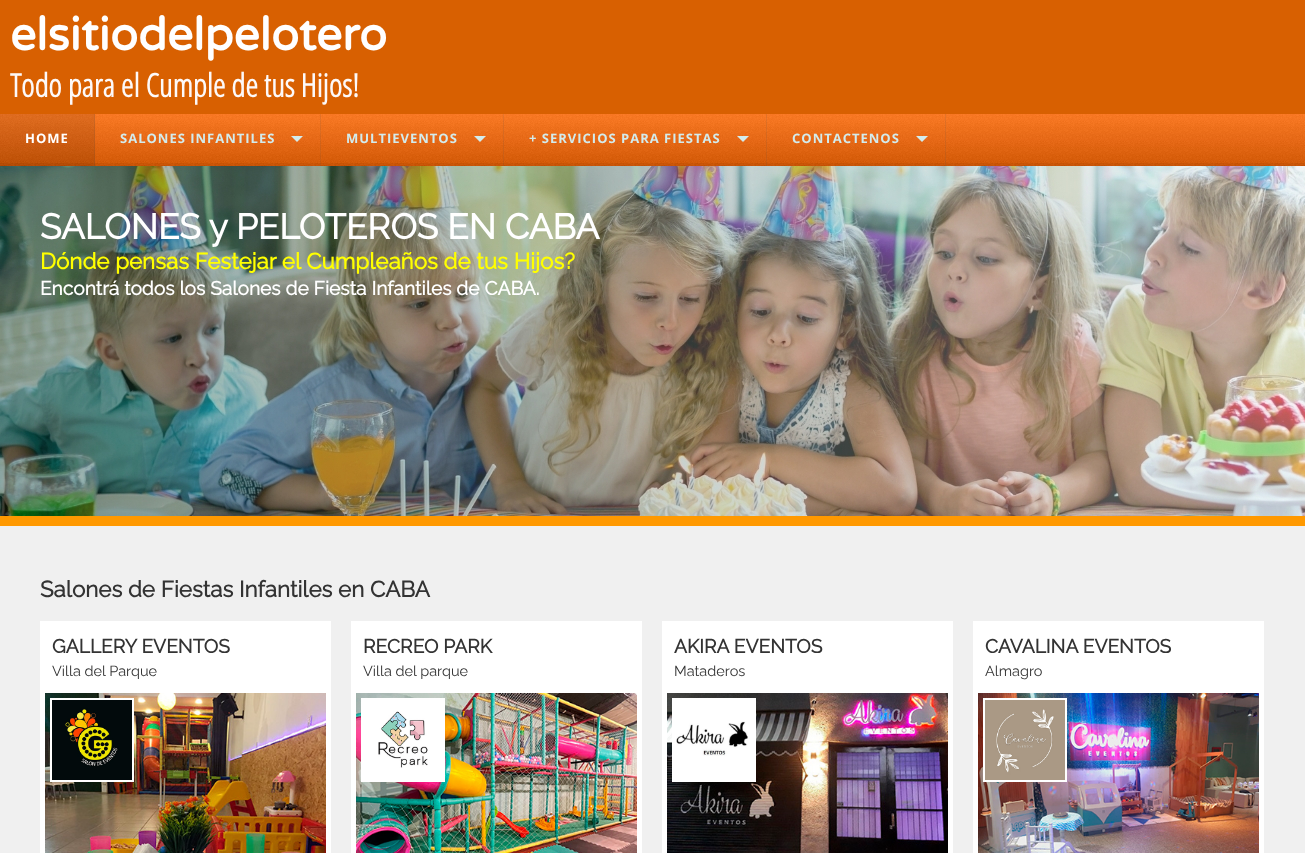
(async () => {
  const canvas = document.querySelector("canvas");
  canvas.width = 1305;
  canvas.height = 853;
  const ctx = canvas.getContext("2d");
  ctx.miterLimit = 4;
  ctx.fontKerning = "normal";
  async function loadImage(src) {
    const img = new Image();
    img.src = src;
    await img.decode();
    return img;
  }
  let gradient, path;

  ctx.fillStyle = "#d86001";
  ctx.fillRect(0, 0, 1305, 853);
  gradient = ctx.createLinearGradient(653, 114, 653, 166);
  gradient.addColorStop(0, "#ff781f");
  gradient.addColorStop(1, "#d65600");
  ctx.fillStyle = gradient;
  ctx.fillRect(0, 114, 1305, 52);
  ctx.drawImage(await loadImage("img/1.png"), 0, 114, 1305, 52);
  for (const [x, y, w, h, color] of [
    [0, 163, 1305, 3, "rgba(0, 0, 0, 0.05)"],
    [0, 114, 95, 52, "rgba(0, 0, 0, 0.1)"],
    [94, 114, 1, 52, "rgba(80, 80, 80, 0.12)"],
    [320, 114, 1, 52, "rgba(80, 80, 80, 0.12)"],
  ]) {
    ctx.fillStyle = color;
    ctx.fillRect(x, y, w, h);
  }
  ctx.fillStyle = "#d3eced";
  path = new Path2D("M291 136H303L297 142Z");
  ctx.fill(path);
  ctx.fillStyle = "rgba(80, 80, 80, 0.12)";
  ctx.fillRect(503, 114, 1, 52);
  ctx.fillStyle = "#d3eced";
  path = new Path2D("M474 136H486L480 142Z");
  ctx.fill(path);
  ctx.fillStyle = "rgba(80, 80, 80, 0.12)";
  ctx.fillRect(766, 114, 1, 52);
  ctx.fillStyle = "#d3eced";
  path = new Path2D("M737 136H749L743 142Z");
  ctx.fill(path);
  ctx.fillStyle = "rgba(80, 80, 80, 0.12)";
  ctx.fillRect(945, 114, 1, 52);
  ctx.fillStyle = "#d3eced";
  path = new Path2D("M916 136H928L922 142Z");
  ctx.fill(path);
  ctx.drawImage(await loadImage("img/2.png"), 0, 166, 1305, 350);
  for (const [x, y, w, h, color] of [
    [0, 526, 1305, 327, "#f0f0f0"],
    [0, 516, 1305, 10, "#ff9900"],
    [40, 621, 291, 232, "#ffffff"],
  ]) {
    ctx.fillStyle = color;
    ctx.fillRect(x, y, w, h);
  }
  ctx.drawImage(await loadImage("img/3.png"), 45, 693, 281, 160);
  ctx.fillRect(50, 698, 84, 84);
  ctx.drawImage(await loadImage("img/4.png"), 52, 700, 80, 80);
  ctx.fillRect(351, 621, 291, 232);
  ctx.drawImage(await loadImage("img/5.png"), 356, 693, 281, 160);
  ctx.fillRect(361, 698, 84, 84);
  ctx.drawImage(await loadImage("img/6.png"), 378, 711, 50, 57);
  ctx.fillRect(662, 621, 291, 232);
  ctx.drawImage(await loadImage("img/7.png"), 667, 693, 281, 160);
  ctx.fillRect(672, 698, 84, 84);
  ctx.drawImage(await loadImage("img/8.png"), 676, 721, 72, 35);
  ctx.fillRect(973, 621, 291, 232);
  ctx.drawImage(await loadImage("img/9.png"), 978, 693, 281, 160);
  ctx.fillRect(983, 698, 84, 84);
  ctx.drawImage(await loadImage("img/10.png"), 985, 700, 80, 80);
  ctx.font = "bold 46px Varela Round";
  ctx.fillText("elsitiodelpelotero", 10, 50);
  ctx.font = "bold 32px Open Sans Condensed";
  ctx.fillStyle = "#fdf9f9";
  ctx.fillText("Todo para el Cumple de tus Hijos!", 10, 97);
  ctx.letterSpacing = "1px";
  ctx.font = "bold 13px Open Sans";
  ctx.fillStyle = "#ffffff";
  ctx.fillText("HOME", 25, 143);
  ctx.fillStyle = "#d3eced";
  for (const [text, x, y] of [
    ["SALONES INFANTILES", 120, 143],
    ["MULTIEVENTOS", 346, 143],
    ["+ SERVICIOS PARA FIESTAS", 529, 143],
    ["CONTACTENOS", 792, 143],
  ]) {
    ctx.fillText(text, x, y);
  }
  ctx.letterSpacing = "0px";
  ctx.font = "bold 35.25px Raleway";
  ctx.fillStyle = "#ffffff";
  ctx.fillText("SALONES y PELOTEROS EN CABA", 40, 239);
  ctx.font = "bold 22.4px Raleway";
  ctx.fillStyle = "#ffff00";
  ctx.fillText("Dónde pensas Festejar el Cumpleaños de tus Hijos?", 40, 269);
  ctx.font = "bold 19.2px Raleway";
  ctx.fillStyle = "#ffffff";
  ctx.fillText("Encontrá todos los Salones de Fiesta Infantiles de CABA.", 40, 295);
  ctx.font = "bold 22.4px Raleway";
  ctx.fillStyle = "#333333";
  ctx.fillText("Salones de Fiestas Infantiles en CABA", 40, 597);
  ctx.font = "bold 19.2px Raleway";
  ctx.fillText("GALLERY EVENTOS", 52, 653);
  ctx.font = "100 14.5px Raleway";
  ctx.fillText("Villa del Parque", 52, 676);
  ctx.font = "bold 19.2px Raleway";
  ctx.fillText("RECREO PARK", 363, 653);
  ctx.font = "100 14.5px Raleway";
  ctx.fillText("Villa del parque", 363, 676);
  ctx.font = "bold 19.2px Raleway";
  ctx.fillText("AKIRA EVENTOS", 674, 653);
  ctx.font = "100 14.5px Raleway";
  ctx.fillText("Mataderos", 674, 676);
  ctx.font = "bold 19.2px Raleway";
  ctx.fillText("CAVALINA EVENTOS", 985, 653);
  ctx.font = "100 14.5px Raleway";
  ctx.fillText("Almagro", 985, 676);
})();
